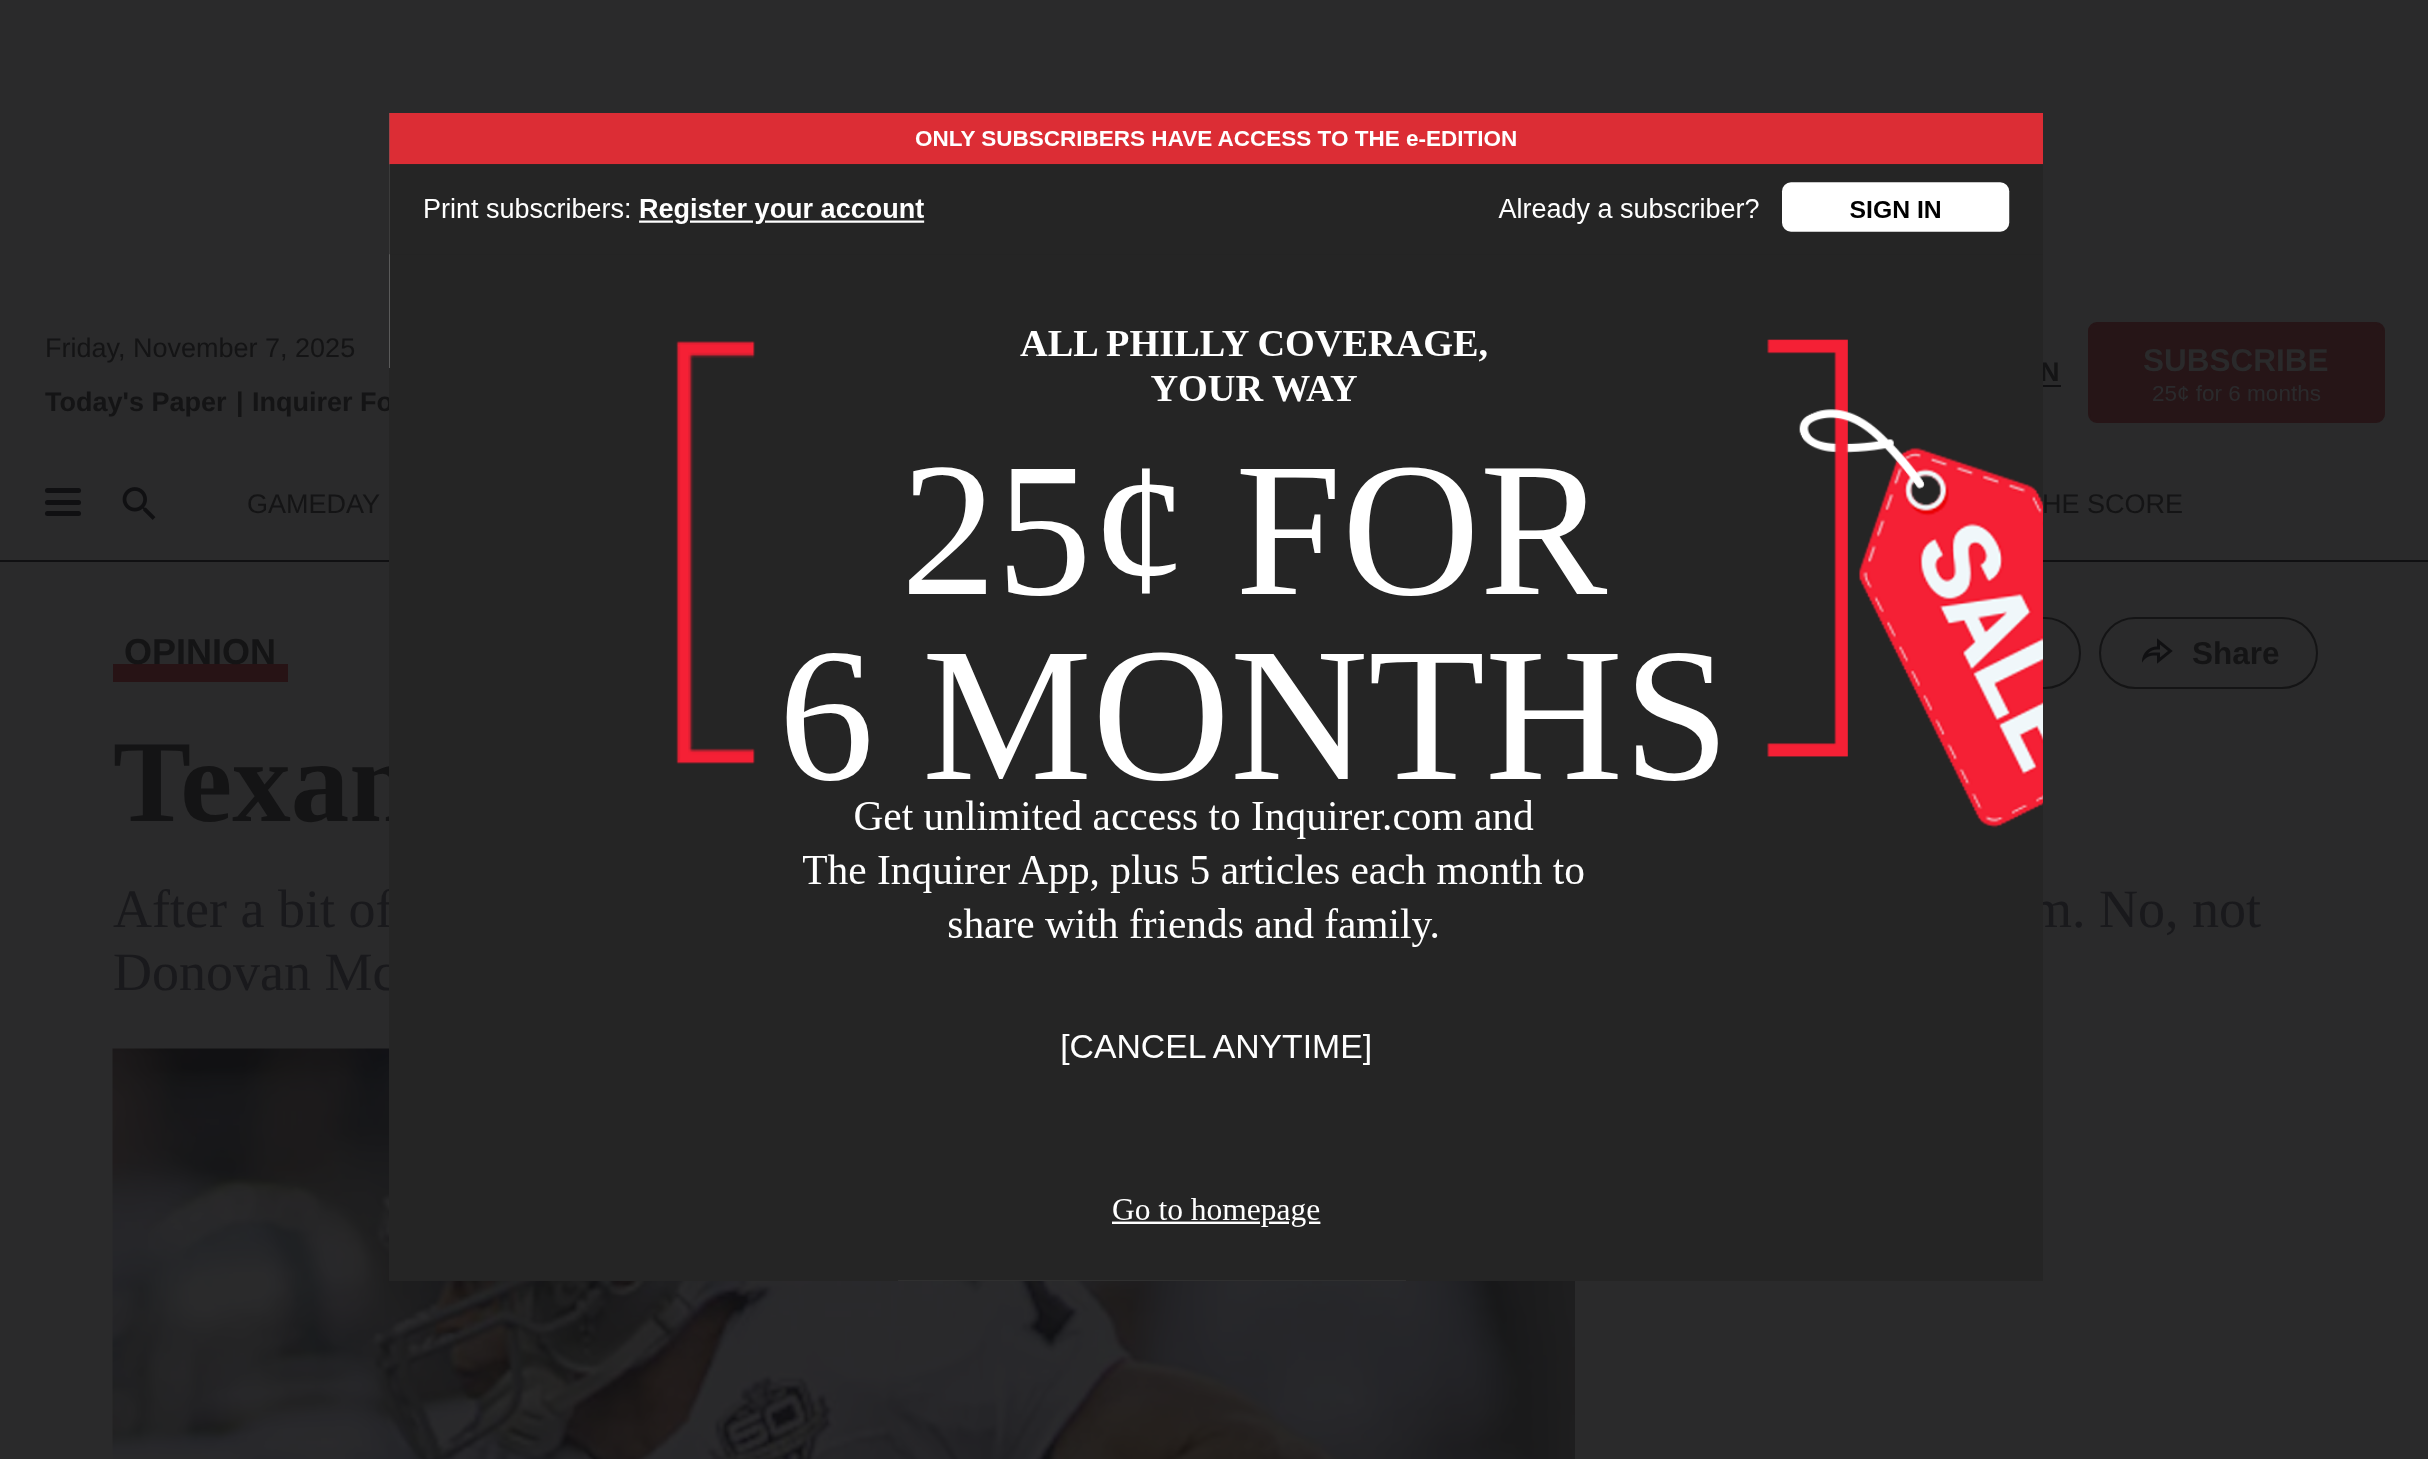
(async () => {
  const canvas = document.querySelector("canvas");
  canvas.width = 2428;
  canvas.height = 1459;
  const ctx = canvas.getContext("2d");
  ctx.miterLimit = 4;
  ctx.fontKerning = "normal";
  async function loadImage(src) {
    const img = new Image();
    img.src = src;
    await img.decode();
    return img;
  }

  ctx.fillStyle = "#2a2a2b";
  ctx.fillRect(0, 0, 2428, 1459);
  ctx.fillStyle = "#101012";
  ctx.fillRect(0, 560, 2428, 2);
  ctx.fillRect(2043, 385, 18, 2);
  ctx.fillStyle = "#261517";
  ctx.beginPath();
  ctx.roundRect(2089, 323, 295, 99, 8);
  ctx.fill();
  ctx.strokeStyle = "#261517";
  ctx.lineWidth = 2;
  ctx.stroke();
  ctx.drawImage(await loadImage("img/2.png"), 2153, 385, 168, 16);
  ctx.fillStyle = "#101012";
  ctx.beginPath();
  ctx.roundRect(45, 488, 36, 5, 2.5);
  ctx.fill();
  ctx.beginPath();
  ctx.roundRect(45, 500, 36, 5, 2.5);
  ctx.fill();
  ctx.beginPath();
  ctx.roundRect(45, 511, 36, 5, 2.5);
  ctx.fill();
  ctx.drawImage(await loadImage("img/3.png"), 122, 487, 34, 33);
  ctx.fillStyle = "#271315";
  ctx.fillRect(113, 664, 175, 18);
  ctx.beginPath();
  ctx.roundRect(1898, 618, 182, 70, 35);
  ctx.strokeStyle = "#141415";
  ctx.stroke();
  ctx.beginPath();
  ctx.roundRect(2100, 618, 217, 70, 35);
  ctx.stroke();
  ctx.drawImage(await loadImage("img/4.png"), 2142, 638, 31, 26);
  ctx.drawImage(await loadImage("img/5.png"), 112, 1048, 1463, 411);
  ctx.font = "27px Liberation Sans";
  ctx.fillStyle = "#141415";
  ctx.fillText("Friday, November 7, 2025", 45, 357);
  ctx.font = "bold 27px Liberation Sans";
  for (const [text, x, y] of [
    ["Today's Paper", 45, 411],
    ["|", 236, 411],
    ["Inquirer Fo", 252, 411],
    ["N", 2040, 381],
  ]) {
    ctx.fillText(text, x, y);
  }
  ctx.font = "bold 31.5px Liberation Sans";
  ctx.fillStyle = "#2a2a2b";
  ctx.fillText("SUBSCRIBE", 2143, 371);
  ctx.font = "27px Liberation Sans";
  ctx.fillStyle = "#141415";
  ctx.fillText("GAMEDAY", 247, 513);
  ctx.fillText("HE SCORE", 2042, 513);
  ctx.font = "bold 36px Liberation Sans";
  ctx.fillText("OPINION", 124, 664);
  ctx.font = "bold 31.5px Liberation Sans";
  ctx.fillText("Share", 2192, 664);
  ctx.font = "bold 117px Liberation Serif";
  ctx.fillText("Texan", 113, 821);
  ctx.font = "54px Liberation Serif";
  ctx.fillStyle = "#19191c";
  for (const [text, x, y] of [
    ["After a bit of", 113, 927],
    ["m. No, not", 2030, 927],
    ["Donovan Mc", 113, 990],
  ]) {
    ctx.fillText(text, x, y);
  }
  ctx.drawImage(await loadImage("img/1.png"), 389, 113, 1654, 1168);
})();
